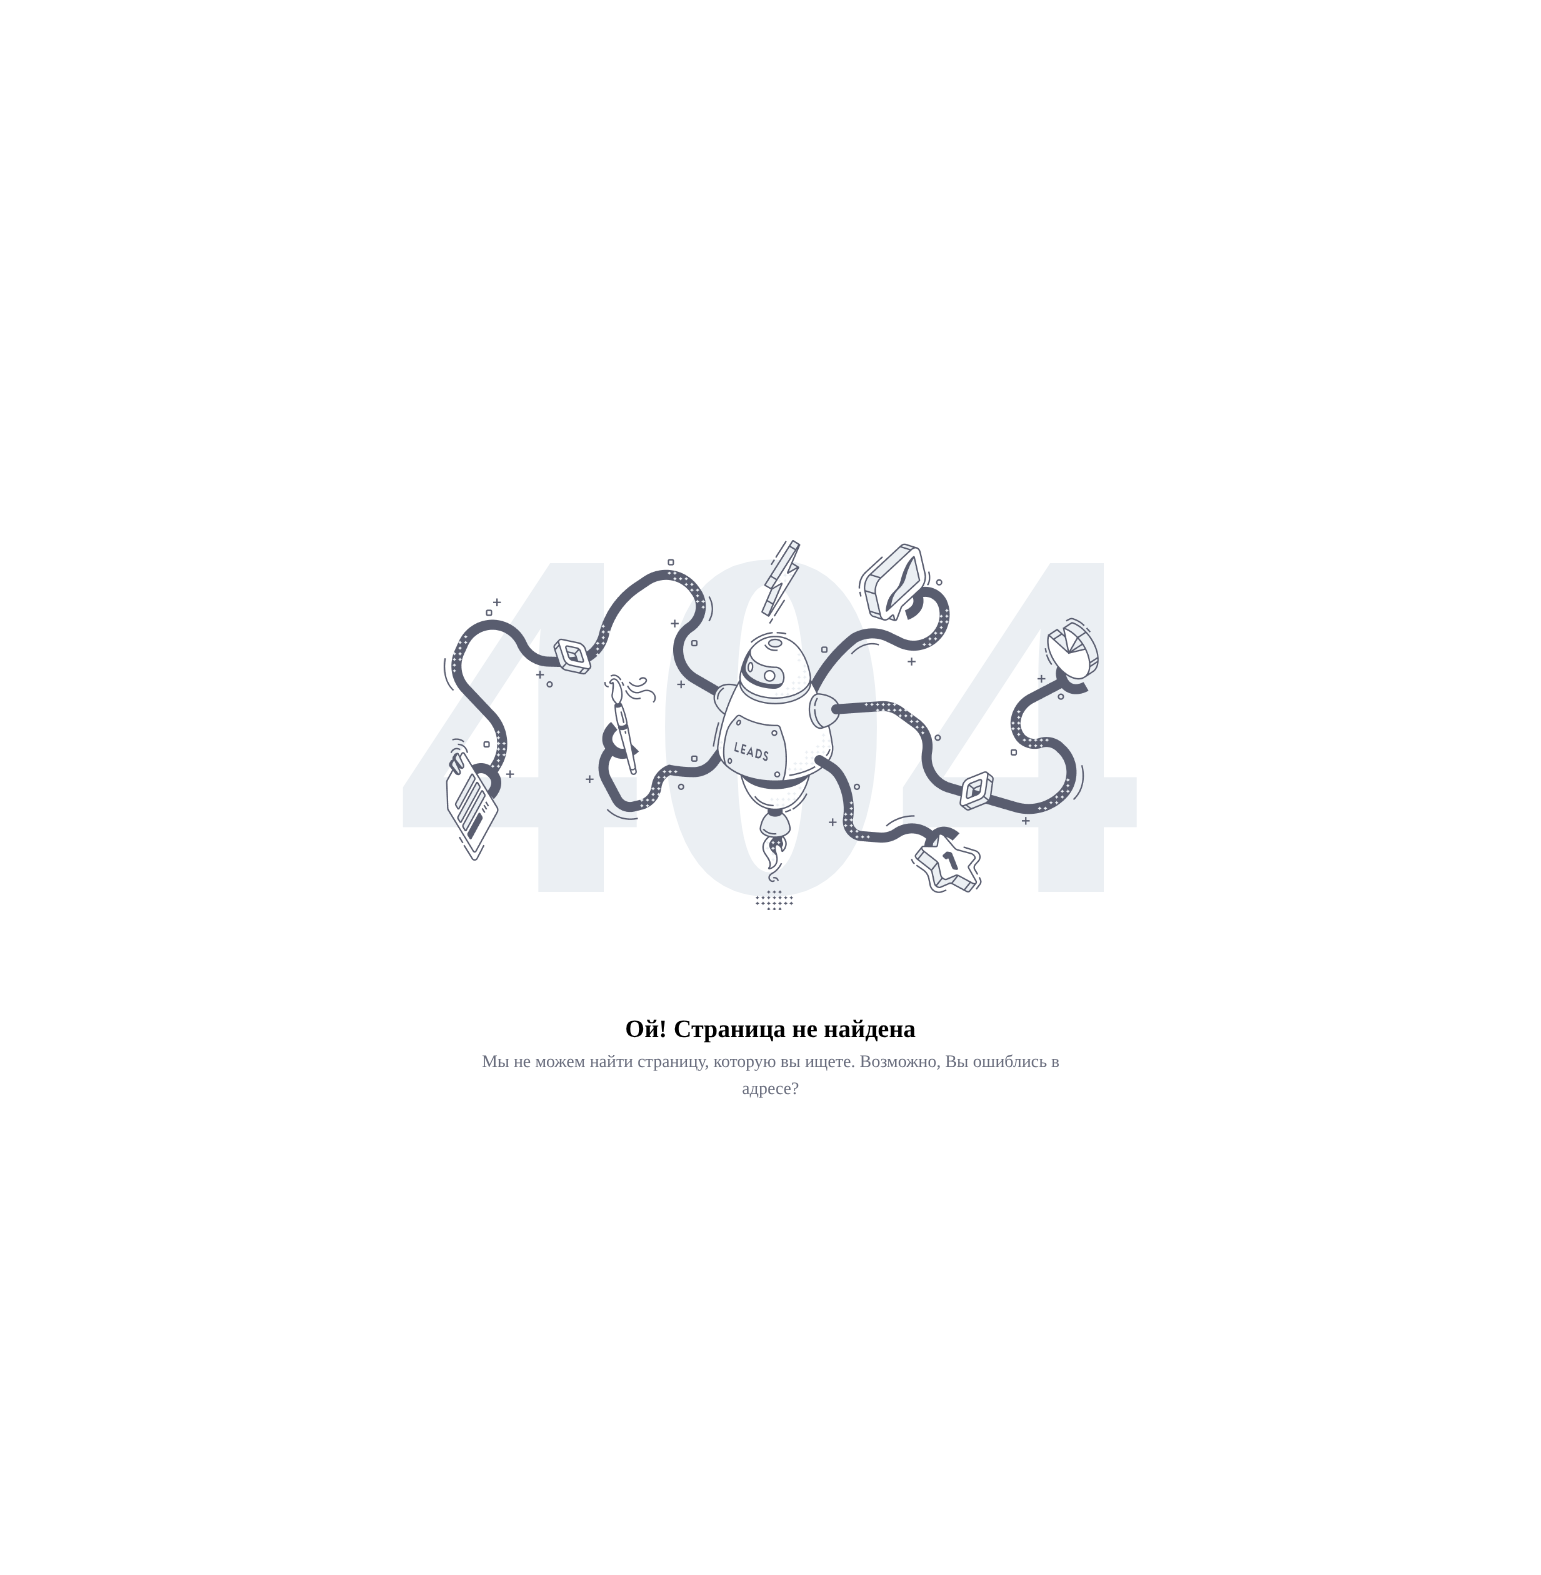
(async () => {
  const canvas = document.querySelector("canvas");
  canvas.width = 1541;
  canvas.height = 1575;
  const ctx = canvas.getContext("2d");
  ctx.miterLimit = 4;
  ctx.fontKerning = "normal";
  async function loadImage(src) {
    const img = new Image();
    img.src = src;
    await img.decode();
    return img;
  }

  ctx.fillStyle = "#ffffff";
  ctx.fillRect(0, 0, 1541, 1575);
  ctx.font = "bold 500px Liberation Serif";
  ctx.fillStyle = "#ebeff3";
  ctx.fillText("404", 396, 892);
  ctx.drawImage(await loadImage("img/1.png"), 443, 540, 656, 370);
  ctx.font = "bold 25px Liberation Serif";
  ctx.fillStyle = "#000000";
  ctx.fillText("Ой! Страница не найдена", 625, 1037);
  ctx.font = "17.5px Liberation Serif";
  ctx.fillStyle = "#6a6e7e";
  ctx.fillText("Мы не можем найти страницу, которую вы ищете. Возможно, Вы ошиблись в", 482, 1067);
  ctx.fillText("адресе?", 742, 1094);
})();
